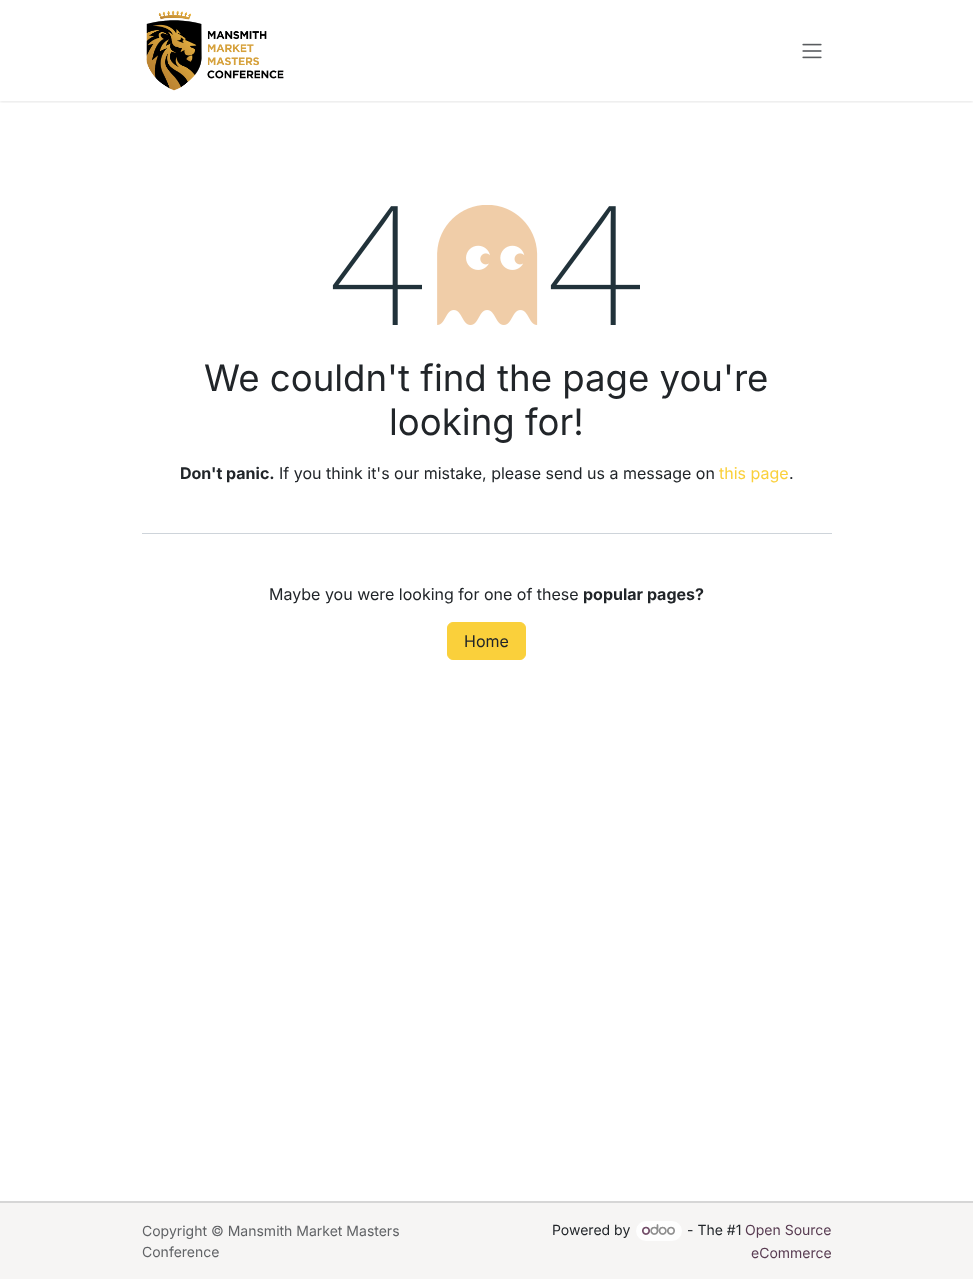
(async () => {
  const canvas = document.querySelector("canvas");
  canvas.width = 973;
  canvas.height = 1279;
  const ctx = canvas.getContext("2d");
  ctx.miterLimit = 4;
  ctx.fontKerning = "normal";
  async function loadImage(src) {
    const img = new Image();
    img.src = src;
    await img.decode();
    return img;
  }

  ctx.fillStyle = "#ffffff";
  ctx.fillRect(0, 0, 973, 1279);
  ctx.save();
  ctx.beginPath();
  ctx.rect(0, 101, 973, 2);
  ctx.clip();
  ctx.fillStyle = "rgba(0, 0, 0, 0.1)";
  ctx.filter = "blur(1.5px)";
  ctx.beginPath();
  ctx.rect(0, 1, 973, 101);
  ctx.fill();
  ctx.filter = "none";
  ctx.restore();
  ctx.drawImage(await loadImage("img/1.png"), 146, 10, 138, 81);
  ctx.drawImage(await loadImage("img/2.png"), 802, 43, 20, 16);
  ctx.drawImage(await loadImage("img/3.png"), 332, 205, 308, 120);
  ctx.fillStyle = "#ced4da";
  ctx.fillRect(142, 533, 690, 1);
  ctx.fillStyle = "#fad03b";
  ctx.beginPath();
  ctx.roundRect(447.5, 622.5, 78, 37, 5.5);
  ctx.fill();
  ctx.strokeStyle = "#fad03b";
  ctx.stroke();
  ctx.fillStyle = "#f6f5f4";
  ctx.fillRect(0, 1203, 973, 76);
  ctx.fillStyle = "#d6d6d6";
  ctx.fillRect(0, 1201, 973, 2);
  ctx.fillStyle = "#fefefe";
  ctx.beginPath();
  ctx.roundRect(635.5, 1220.5, 47, 21, 10.5);
  ctx.fill();
  ctx.strokeStyle = "#f6f5f4";
  ctx.stroke();
  ctx.drawImage(await loadImage("img/4.png"), 642, 1224, 33, 11);
  ctx.font = "36.6px Inter";
  ctx.fillStyle = "#212529";
  ctx.fillText("We couldn't find the page you're", 204, 391);
  ctx.fillText("looking for!", 389, 435);
  ctx.font = "bold 16px Inter";
  ctx.fillText("Don't panic.", 180, 479);
  ctx.font = "16px Inter";
  ctx.fillText("If you think it's our mistake, please send us a message on", 279, 479);
  ctx.fillStyle = "#fad03b";
  ctx.fillText("this page", 719, 479);
  ctx.fillStyle = "#212529";
  ctx.fillText(".", 789, 479);
  ctx.fillText("Maybe you were looking for one of these", 269, 600);
  ctx.font = "bold 16px Inter";
  ctx.fillText("popular pages?", 583, 600);
  ctx.font = "16px Inter";
  ctx.fillText("Home", 464, 647);
  ctx.font = "14px Inter";
  ctx.fillStyle = "#616366";
  ctx.fillText("Copyright © Mansmith Market Masters", 142, 1236);
  ctx.fillText("Conference", 142, 1257);
  ctx.fillStyle = "#212529";
  ctx.fillText("Powered by", 552, 1235);
  ctx.fillText("- The #1", 687, 1235);
  ctx.fillStyle = "#583b51";
  ctx.fillText("Open Source", 745, 1235);
  ctx.fillText("eCommerce", 751, 1258);
})();
